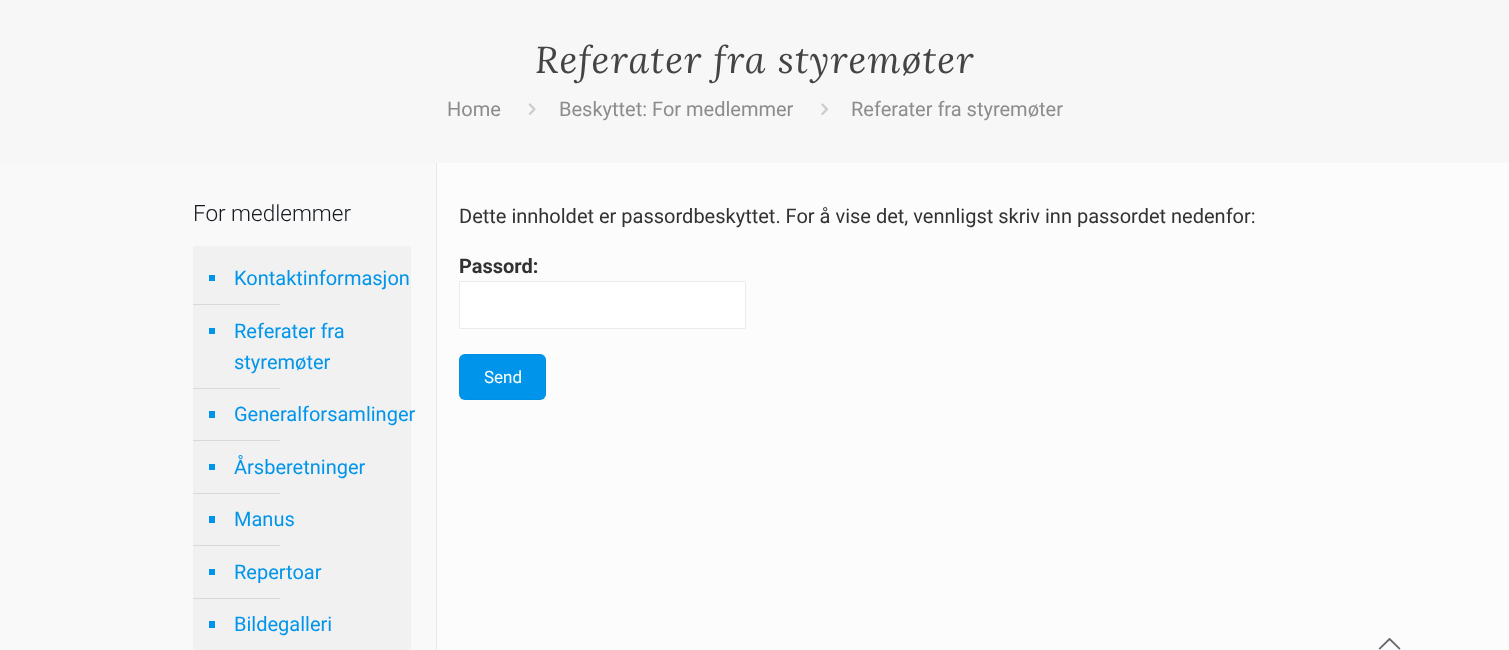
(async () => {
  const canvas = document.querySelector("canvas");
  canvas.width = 1509;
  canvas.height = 650;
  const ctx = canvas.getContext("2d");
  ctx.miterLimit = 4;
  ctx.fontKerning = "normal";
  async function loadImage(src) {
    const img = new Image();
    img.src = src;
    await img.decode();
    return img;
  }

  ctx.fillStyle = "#fcfcfc";
  ctx.fillRect(0, 0, 1509, 650);
  ctx.fillStyle = "#f7f7f7";
  ctx.fillRect(0, 0, 1509, 163);
  ctx.drawImage(await loadImage("img/1.png"), 528, 103, 8, 12);
  ctx.drawImage(await loadImage("img/2.png"), 821, 103, 7, 12);
  for (const [x, y, w, h, color] of [
    [436, 163, 1, 487, "#e8e8e8"],
    [0, 163, 436, 487, "#f9f9f9"],
    [193, 246, 218, 404, "#f1f1f1"],
    [209, 275, 6, 6, "#0095eb"],
    [193, 304, 87, 1, "#d9d9d9"],
    [209, 328, 6, 6, "#0095eb"],
    [193, 388, 87, 1, "#d9d9d9"],
    [209, 411, 6, 7, "#0095eb"],
    [193, 440, 87, 1, "#d9d9d9"],
    [209, 464, 6, 6, "#0095eb"],
    [193, 493, 87, 1, "#d9d9d9"],
    [209, 516, 6, 7, "#0095eb"],
    [193, 545, 87, 1, "#d9d9d9"],
    [209, 569, 6, 6, "#0095eb"],
    [193, 598, 87, 1, "#d9d9d9"],
    [209, 621, 6, 7, "#0095eb"],
  ]) {
    ctx.fillStyle = color;
    ctx.fillRect(x, y, w, h);
  }
  ctx.fillStyle = "#ffffff";
  ctx.beginPath();
  ctx.rect(459.5, 281.5, 286, 47);
  ctx.fill();
  ctx.strokeStyle = "#ebebeb";
  ctx.stroke();
  ctx.fillStyle = "#0095eb";
  ctx.beginPath();
  ctx.roundRect(459, 354, 87, 46, 6);
  ctx.fill();
  ctx.strokeStyle = "rgba(0, 0, 0, 0.03)";
  ctx.strokeRect(459.5, 354.5, 86, 45);
  ctx.drawImage(await loadImage("img/3.png"), 1378, 638, 23, 12);
  ctx.letterSpacing = "1.25px";
  ctx.font = "italic 37.5px Lora";
  ctx.fillStyle = "#444444";
  ctx.fillText("Referater fra styremøter", 535, 73);
  ctx.letterSpacing = "0px";
  ctx.font = "20px Roboto";
  ctx.fillStyle = "#8c8c8c";
  for (const [text, x, y] of [
    ["Home", 447, 116],
    ["Beskyttet: For medlemmer", 559, 116],
    ["Referater fra styremøter", 851, 116],
  ]) {
    ctx.fillText(text, x, y);
  }
  ctx.font = "300 22.5px Roboto";
  ctx.fillStyle = "#161922";
  ctx.fillText("For medlemmer", 193, 221);
  ctx.font = "20px Roboto";
  ctx.fillStyle = "#0095eb";
  for (const [text, x, y] of [
    ["Kontaktinformasjon", 234, 285],
    ["Referater fra", 234, 338],
    ["styremøter", 234, 369],
    ["Generalforsamlinger", 234, 421],
    ["Årsberetninger", 234, 474],
    ["Manus", 234, 526],
    ["Repertoar", 234, 579],
    ["Bildegalleri", 234, 631],
  ]) {
    ctx.fillText(text, x, y);
  }
  ctx.fillStyle = "#323232";
  ctx.fillText("Dette innholdet er passordbeskyttet. For å vise det, vennligst skriv inn passordet nedenfor:", 459, 223);
  ctx.font = "bold 20px Roboto";
  ctx.fillText("Passord:", 459, 273);
  ctx.font = "17px Roboto";
  ctx.fillStyle = "#ffffff";
  ctx.fillText("Send", 484, 383);
})();
